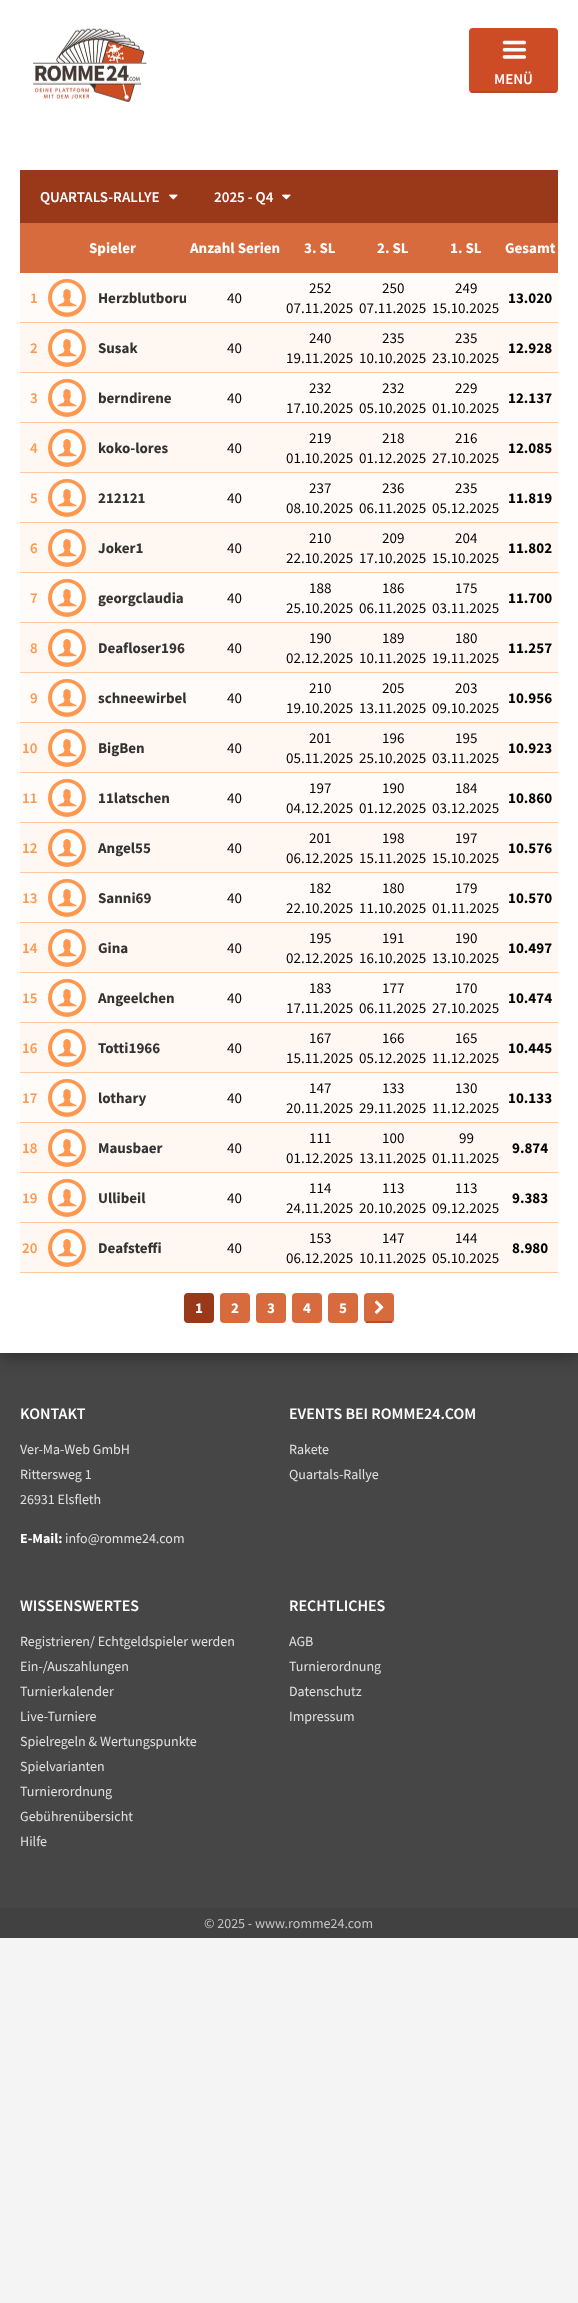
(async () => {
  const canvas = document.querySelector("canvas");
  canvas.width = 578;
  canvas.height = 2303;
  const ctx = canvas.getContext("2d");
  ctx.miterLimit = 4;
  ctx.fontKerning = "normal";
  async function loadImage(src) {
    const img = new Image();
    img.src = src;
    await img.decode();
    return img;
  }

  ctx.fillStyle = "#f4f4f4";
  ctx.fillRect(0, 0, 578, 2303);
  ctx.fillStyle = "#464646";
  ctx.fillRect(0, 1353, 578, 555);
  ctx.fillStyle = "rgba(0, 0, 0, 0.5)";
  ctx.filter = "blur(10px)";
  ctx.beginPath();
  ctx.rect(0, 120, 578, 1233);
  ctx.fill();
  ctx.filter = "none";
  ctx.fillStyle = "#ffffff";
  ctx.fillRect(0, 0, 578, 120);
  ctx.drawImage(await loadImage("img/1.png"), 33, 28, 114, 74);
  ctx.fillStyle = "#cd4c25";
  ctx.beginPath();
  ctx.roundRect(469, 28, 89, 65, 4);
  ctx.fill();
  ctx.fillStyle = "#b44b2f";
  ctx.fillRect(471, 91, 85, 2);
  ctx.drawImage(await loadImage("img/2.png"), 502, 40, 25, 19);
  ctx.fillStyle = "#ffffff";
  ctx.fillRect(0, 120, 578, 1233);
  ctx.fillStyle = "#99391a";
  ctx.fillRect(20, 170, 538, 53);
  ctx.drawImage(await loadImage("img/3.png"), 169, 194, 9, 6);
  ctx.drawImage(await loadImage("img/3.png"), 282, 194, 9, 6);
  for (const [x, y, w, h, color] of [
    [20, 223, 538, 50, "#d86b3d"],
    [20, 273, 166, 49, "#fffbf8"],
    [20, 322, 538, 1, "#ffc7a1"],
  ]) {
    ctx.fillStyle = color;
    ctx.fillRect(x, y, w, h);
  }
  ctx.fillStyle = "#ff974f";
  ctx.beginPath();
  ctx.arc(67, 298, 19, 0, Math.PI * 2);
  ctx.fill();
  ctx.drawImage(await loadImage("img/4.png"), 52, 282, 30, 31);
  ctx.fillStyle = "#fff7f1";
  ctx.fillRect(20, 323, 538, 49);
  ctx.fillStyle = "#ffc7a1";
  ctx.fillRect(20, 372, 538, 1);
  ctx.fillStyle = "#ff974f";
  ctx.beginPath();
  ctx.arc(67, 348, 19, 0, Math.PI * 2);
  ctx.fill();
  ctx.drawImage(await loadImage("img/5.png"), 52, 332, 30, 31);
  ctx.fillStyle = "#fffbf8";
  ctx.fillRect(20, 373, 538, 49);
  ctx.fillStyle = "#ffc7a1";
  ctx.fillRect(20, 422, 538, 1);
  ctx.fillStyle = "#ff974f";
  ctx.beginPath();
  ctx.arc(67, 398, 19, 0, Math.PI * 2);
  ctx.fill();
  ctx.drawImage(await loadImage("img/4.png"), 52, 382, 30, 31);
  ctx.fillStyle = "#fff7f1";
  ctx.fillRect(20, 423, 538, 49);
  ctx.fillStyle = "#ffc7a1";
  ctx.fillRect(20, 472, 538, 1);
  ctx.fillStyle = "#ff974f";
  ctx.beginPath();
  ctx.arc(67, 448, 19, 0, Math.PI * 2);
  ctx.fill();
  ctx.drawImage(await loadImage("img/5.png"), 52, 432, 30, 31);
  ctx.fillStyle = "#fffbf8";
  ctx.fillRect(20, 473, 538, 49);
  ctx.fillStyle = "#ffc7a1";
  ctx.fillRect(20, 522, 538, 1);
  ctx.fillStyle = "#ff974f";
  ctx.beginPath();
  ctx.arc(67, 498, 19, 0, Math.PI * 2);
  ctx.fill();
  ctx.drawImage(await loadImage("img/4.png"), 52, 482, 30, 31);
  ctx.fillStyle = "#fff7f1";
  ctx.fillRect(20, 523, 538, 49);
  ctx.fillStyle = "#ffc7a1";
  ctx.fillRect(20, 572, 538, 1);
  ctx.fillStyle = "#ff974f";
  ctx.beginPath();
  ctx.arc(67, 548, 19, 0, Math.PI * 2);
  ctx.fill();
  ctx.drawImage(await loadImage("img/5.png"), 52, 532, 30, 31);
  ctx.fillStyle = "#fffbf8";
  ctx.fillRect(20, 573, 538, 49);
  ctx.fillStyle = "#ffc7a1";
  ctx.fillRect(20, 622, 538, 1);
  ctx.fillStyle = "#ff974f";
  ctx.beginPath();
  ctx.arc(67, 598, 19, 0, Math.PI * 2);
  ctx.fill();
  ctx.drawImage(await loadImage("img/4.png"), 52, 582, 30, 31);
  ctx.fillStyle = "#fff7f1";
  ctx.fillRect(20, 623, 538, 49);
  ctx.fillStyle = "#ffc7a1";
  ctx.fillRect(20, 672, 538, 1);
  ctx.fillStyle = "#ff974f";
  ctx.beginPath();
  ctx.arc(67, 648, 19, 0, Math.PI * 2);
  ctx.fill();
  ctx.drawImage(await loadImage("img/5.png"), 52, 632, 30, 31);
  ctx.fillStyle = "#fffbf8";
  ctx.fillRect(20, 673, 166, 49);
  ctx.fillStyle = "#ffc7a1";
  ctx.fillRect(20, 722, 538, 1);
  ctx.fillStyle = "#ff974f";
  ctx.beginPath();
  ctx.arc(67, 698, 19, 0, Math.PI * 2);
  ctx.fill();
  ctx.drawImage(await loadImage("img/4.png"), 52, 682, 30, 31);
  ctx.fillStyle = "#fff7f1";
  ctx.fillRect(20, 723, 538, 49);
  ctx.fillStyle = "#ffc7a1";
  ctx.fillRect(20, 772, 538, 1);
  ctx.fillStyle = "#ff974f";
  ctx.beginPath();
  ctx.arc(67, 748, 19, 0, Math.PI * 2);
  ctx.fill();
  ctx.drawImage(await loadImage("img/5.png"), 52, 732, 30, 31);
  ctx.fillStyle = "#fffbf8";
  ctx.fillRect(20, 773, 538, 49);
  ctx.fillStyle = "#ffc7a1";
  ctx.fillRect(20, 822, 538, 1);
  ctx.fillStyle = "#ff974f";
  ctx.beginPath();
  ctx.arc(67, 798, 19, 0, Math.PI * 2);
  ctx.fill();
  ctx.drawImage(await loadImage("img/4.png"), 52, 782, 30, 31);
  ctx.fillStyle = "#fff7f1";
  ctx.fillRect(20, 823, 538, 49);
  ctx.fillStyle = "#ffc7a1";
  ctx.fillRect(20, 872, 538, 1);
  ctx.fillStyle = "#ff974f";
  ctx.beginPath();
  ctx.arc(67, 848, 19, 0, Math.PI * 2);
  ctx.fill();
  ctx.drawImage(await loadImage("img/5.png"), 52, 832, 30, 31);
  ctx.fillStyle = "#fffbf8";
  ctx.fillRect(20, 873, 538, 49);
  ctx.fillStyle = "#ffc7a1";
  ctx.fillRect(20, 922, 538, 1);
  ctx.fillStyle = "#ff974f";
  ctx.beginPath();
  ctx.arc(67, 898, 19, 0, Math.PI * 2);
  ctx.fill();
  ctx.drawImage(await loadImage("img/4.png"), 52, 882, 30, 31);
  ctx.fillStyle = "#fff7f1";
  ctx.fillRect(20, 923, 538, 49);
  ctx.fillStyle = "#ffc7a1";
  ctx.fillRect(20, 972, 538, 1);
  ctx.fillStyle = "#ff974f";
  ctx.beginPath();
  ctx.arc(67, 948, 19, 0, Math.PI * 2);
  ctx.fill();
  ctx.drawImage(await loadImage("img/5.png"), 52, 932, 30, 31);
  ctx.fillStyle = "#fffbf8";
  ctx.fillRect(20, 973, 538, 49);
  ctx.fillStyle = "#ffc7a1";
  ctx.fillRect(20, 1022, 538, 1);
  ctx.fillStyle = "#ff974f";
  ctx.beginPath();
  ctx.arc(67, 998, 19, 0, Math.PI * 2);
  ctx.fill();
  ctx.drawImage(await loadImage("img/4.png"), 52, 982, 30, 31);
  ctx.fillStyle = "#fff7f1";
  ctx.fillRect(20, 1023, 538, 49);
  ctx.fillStyle = "#ffc7a1";
  ctx.fillRect(20, 1072, 538, 1);
  ctx.fillStyle = "#ff974f";
  ctx.beginPath();
  ctx.arc(67, 1048, 19, 0, Math.PI * 2);
  ctx.fill();
  ctx.drawImage(await loadImage("img/5.png"), 52, 1032, 30, 31);
  ctx.fillStyle = "#fffbf8";
  ctx.fillRect(20, 1073, 538, 49);
  ctx.fillStyle = "#ffc7a1";
  ctx.fillRect(20, 1122, 538, 1);
  ctx.fillStyle = "#ff974f";
  ctx.beginPath();
  ctx.arc(67, 1098, 19, 0, Math.PI * 2);
  ctx.fill();
  ctx.drawImage(await loadImage("img/4.png"), 52, 1082, 30, 31);
  ctx.fillStyle = "#fff7f1";
  ctx.fillRect(20, 1123, 538, 49);
  ctx.fillStyle = "#ffc7a1";
  ctx.fillRect(20, 1172, 538, 1);
  ctx.fillStyle = "#ff974f";
  ctx.beginPath();
  ctx.arc(67, 1148, 19, 0, Math.PI * 2);
  ctx.fill();
  ctx.drawImage(await loadImage("img/5.png"), 52, 1132, 30, 31);
  ctx.fillStyle = "#fffbf8";
  ctx.fillRect(20, 1173, 538, 49);
  ctx.fillStyle = "#ffc7a1";
  ctx.fillRect(20, 1222, 538, 1);
  ctx.fillStyle = "#ff974f";
  ctx.beginPath();
  ctx.arc(67, 1198, 19, 0, Math.PI * 2);
  ctx.fill();
  ctx.drawImage(await loadImage("img/4.png"), 52, 1182, 30, 31);
  ctx.fillStyle = "#fff7f1";
  ctx.fillRect(20, 1223, 538, 49);
  ctx.fillStyle = "#ffc7a1";
  ctx.fillRect(20, 1272, 538, 1);
  ctx.fillStyle = "#ff974f";
  ctx.beginPath();
  ctx.arc(67, 1248, 19, 0, Math.PI * 2);
  ctx.fill();
  ctx.drawImage(await loadImage("img/5.png"), 52, 1232, 30, 31);
  ctx.fillStyle = "#99391a";
  ctx.beginPath();
  ctx.roundRect(184, 1293, 30, 30, 4);
  ctx.fill();
  ctx.fillStyle = "#d86b3d";
  ctx.beginPath();
  ctx.roundRect(220, 1293, 30, 30, 4);
  ctx.fill();
  ctx.beginPath();
  ctx.roundRect(256, 1293, 30, 30, 4);
  ctx.fill();
  ctx.beginPath();
  ctx.roundRect(292, 1293, 30, 30, 4);
  ctx.fill();
  ctx.beginPath();
  ctx.roundRect(328, 1293, 30, 30, 4);
  ctx.fill();
  ctx.beginPath();
  ctx.roundRect(364, 1293, 30, 30, 4);
  ctx.fill();
  ctx.fillStyle = "#b44b2f";
  ctx.fillRect(366, 1321, 26, 2);
  ctx.drawImage(await loadImage("img/6.png"), 374, 1300, 10, 14);
  ctx.fillStyle = "#414141";
  ctx.fillRect(0, 1908, 578, 30);
  ctx.font = "600 15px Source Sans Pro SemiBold";
  ctx.fillStyle = "#ffffff";
  for (const [text, x, y] of [
    ["MENÜ", 494, 84],
    ["QUARTALS-RALLYE", 40, 202],
    ["2025 - Q4", 214, 202],
  ]) {
    ctx.fillText(text, x, y);
  }
  ctx.font = "bold 15px Source Sans Pro";
  for (const [text, x, y] of [
    ["Spieler", 89, 253],
    ["Anzahl Serien", 190, 253],
    ["3. SL", 304, 253],
    ["2. SL", 377, 253],
    ["1. SL", 450, 253],
    ["Gesamt", 505, 253],
  ]) {
    ctx.fillText(text, x, y);
  }
  ctx.font = "600 15px Source Sans Pro SemiBold";
  ctx.fillStyle = "#ff974f";
  ctx.fillText("1", 30, 303);
  ctx.font = "bold 15px Source Sans Pro";
  ctx.fillStyle = "#333333";
  ctx.fillText("Herzblutboru", 98, 303);
  ctx.fillStyle = "#fffbf8";
  ctx.fillRect(186, 273, 372, 49);
  ctx.font = "15px Source Sans Pro";
  ctx.fillStyle = "#000000";
  for (const [text, x, y] of [
    ["40", 227, 303],
    ["252", 309, 293],
    ["07.11.2025", 286, 313],
    ["250", 382, 293],
    ["07.11.2025", 359, 313],
    ["249", 455, 293],
    ["15.10.2025", 432, 313],
  ]) {
    ctx.fillText(text, x, y);
  }
  ctx.font = "bold 15px Source Sans Pro";
  ctx.fillText("13.020", 508, 303);
  ctx.font = "600 15px Source Sans Pro SemiBold";
  ctx.fillStyle = "#ff974f";
  ctx.fillText("2", 30, 353);
  ctx.font = "bold 15px Source Sans Pro";
  ctx.fillStyle = "#333333";
  ctx.fillText("Susak", 98, 353);
  ctx.font = "15px Source Sans Pro";
  ctx.fillStyle = "#000000";
  for (const [text, x, y] of [
    ["40", 227, 353],
    ["240", 309, 343],
    ["19.11.2025", 286, 363],
    ["235", 382, 343],
    ["10.10.2025", 359, 363],
    ["235", 455, 343],
    ["23.10.2025", 432, 363],
  ]) {
    ctx.fillText(text, x, y);
  }
  ctx.font = "bold 15px Source Sans Pro";
  ctx.fillText("12.928", 508, 353);
  ctx.font = "600 15px Source Sans Pro SemiBold";
  ctx.fillStyle = "#ff974f";
  ctx.fillText("3", 30, 403);
  ctx.font = "bold 15px Source Sans Pro";
  ctx.fillStyle = "#333333";
  ctx.fillText("berndirene", 98, 403);
  ctx.font = "15px Source Sans Pro";
  ctx.fillStyle = "#000000";
  for (const [text, x, y] of [
    ["40", 227, 403],
    ["232", 309, 393],
    ["17.10.2025", 286, 413],
    ["232", 382, 393],
    ["05.10.2025", 359, 413],
    ["229", 455, 393],
    ["01.10.2025", 432, 413],
  ]) {
    ctx.fillText(text, x, y);
  }
  ctx.font = "bold 15px Source Sans Pro";
  ctx.fillText("12.137", 508, 403);
  ctx.font = "600 15px Source Sans Pro SemiBold";
  ctx.fillStyle = "#ff974f";
  ctx.fillText("4", 30, 453);
  ctx.font = "bold 15px Source Sans Pro";
  ctx.fillStyle = "#333333";
  ctx.fillText("koko-lores", 98, 453);
  ctx.font = "15px Source Sans Pro";
  ctx.fillStyle = "#000000";
  for (const [text, x, y] of [
    ["40", 227, 453],
    ["219", 309, 443],
    ["01.10.2025", 286, 463],
    ["218", 382, 443],
    ["01.12.2025", 359, 463],
    ["216", 455, 443],
    ["27.10.2025", 432, 463],
  ]) {
    ctx.fillText(text, x, y);
  }
  ctx.font = "bold 15px Source Sans Pro";
  ctx.fillText("12.085", 508, 453);
  ctx.font = "600 15px Source Sans Pro SemiBold";
  ctx.fillStyle = "#ff974f";
  ctx.fillText("5", 30, 503);
  ctx.font = "bold 15px Source Sans Pro";
  ctx.fillStyle = "#333333";
  ctx.fillText("212121", 98, 503);
  ctx.font = "15px Source Sans Pro";
  ctx.fillStyle = "#000000";
  for (const [text, x, y] of [
    ["40", 227, 503],
    ["237", 309, 493],
    ["08.10.2025", 286, 513],
    ["236", 382, 493],
    ["06.11.2025", 359, 513],
    ["235", 455, 493],
    ["05.12.2025", 432, 513],
  ]) {
    ctx.fillText(text, x, y);
  }
  ctx.font = "bold 15px Source Sans Pro";
  ctx.fillText("11.819", 508, 503);
  ctx.font = "600 15px Source Sans Pro SemiBold";
  ctx.fillStyle = "#ff974f";
  ctx.fillText("6", 30, 553);
  ctx.font = "bold 15px Source Sans Pro";
  ctx.fillStyle = "#333333";
  ctx.fillText("Joker1", 98, 553);
  ctx.font = "15px Source Sans Pro";
  ctx.fillStyle = "#000000";
  for (const [text, x, y] of [
    ["40", 227, 553],
    ["210", 309, 543],
    ["22.10.2025", 286, 563],
    ["209", 382, 543],
    ["17.10.2025", 359, 563],
    ["204", 455, 543],
    ["15.10.2025", 432, 563],
  ]) {
    ctx.fillText(text, x, y);
  }
  ctx.font = "bold 15px Source Sans Pro";
  ctx.fillText("11.802", 508, 553);
  ctx.font = "600 15px Source Sans Pro SemiBold";
  ctx.fillStyle = "#ff974f";
  ctx.fillText("7", 30, 603);
  ctx.font = "bold 15px Source Sans Pro";
  ctx.fillStyle = "#333333";
  ctx.fillText("georgclaudia", 98, 603);
  ctx.font = "15px Source Sans Pro";
  ctx.fillStyle = "#000000";
  for (const [text, x, y] of [
    ["40", 227, 603],
    ["188", 309, 593],
    ["25.10.2025", 286, 613],
    ["186", 382, 593],
    ["06.11.2025", 359, 613],
    ["175", 455, 593],
    ["03.11.2025", 432, 613],
  ]) {
    ctx.fillText(text, x, y);
  }
  ctx.font = "bold 15px Source Sans Pro";
  ctx.fillText("11.700", 508, 603);
  ctx.font = "600 15px Source Sans Pro SemiBold";
  ctx.fillStyle = "#ff974f";
  ctx.fillText("8", 30, 653);
  ctx.font = "bold 15px Source Sans Pro";
  ctx.fillStyle = "#333333";
  ctx.fillText("Deafloser196", 98, 653);
  ctx.font = "15px Source Sans Pro";
  ctx.fillStyle = "#000000";
  for (const [text, x, y] of [
    ["40", 227, 653],
    ["190", 309, 643],
    ["02.12.2025", 286, 663],
    ["189", 382, 643],
    ["10.11.2025", 359, 663],
    ["180", 455, 643],
    ["19.11.2025", 432, 663],
  ]) {
    ctx.fillText(text, x, y);
  }
  ctx.font = "bold 15px Source Sans Pro";
  ctx.fillText("11.257", 508, 653);
  ctx.font = "600 15px Source Sans Pro SemiBold";
  ctx.fillStyle = "#ff974f";
  ctx.fillText("9", 30, 703);
  ctx.font = "bold 15px Source Sans Pro";
  ctx.fillStyle = "#333333";
  ctx.fillText("schneewirbel", 98, 703);
  ctx.fillStyle = "#fffbf8";
  ctx.fillRect(186, 673, 372, 49);
  ctx.font = "15px Source Sans Pro";
  ctx.fillStyle = "#000000";
  for (const [text, x, y] of [
    ["40", 227, 703],
    ["210", 309, 693],
    ["19.10.2025", 286, 713],
    ["205", 382, 693],
    ["13.11.2025", 359, 713],
    ["203", 455, 693],
    ["09.10.2025", 432, 713],
  ]) {
    ctx.fillText(text, x, y);
  }
  ctx.font = "bold 15px Source Sans Pro";
  ctx.fillText("10.956", 508, 703);
  ctx.font = "600 15px Source Sans Pro SemiBold";
  ctx.fillStyle = "#ff974f";
  ctx.fillText("10", 22, 753);
  ctx.font = "bold 15px Source Sans Pro";
  ctx.fillStyle = "#333333";
  ctx.fillText("BigBen", 98, 753);
  ctx.font = "15px Source Sans Pro";
  ctx.fillStyle = "#000000";
  for (const [text, x, y] of [
    ["40", 227, 753],
    ["201", 309, 743],
    ["05.11.2025", 286, 763],
    ["196", 382, 743],
    ["25.10.2025", 359, 763],
    ["195", 455, 743],
    ["03.11.2025", 432, 763],
  ]) {
    ctx.fillText(text, x, y);
  }
  ctx.font = "bold 15px Source Sans Pro";
  ctx.fillText("10.923", 508, 753);
  ctx.font = "600 15px Source Sans Pro SemiBold";
  ctx.fillStyle = "#ff974f";
  ctx.fillText("11", 22, 803);
  ctx.font = "bold 15px Source Sans Pro";
  ctx.fillStyle = "#333333";
  ctx.fillText("11latschen", 98, 803);
  ctx.font = "15px Source Sans Pro";
  ctx.fillStyle = "#000000";
  for (const [text, x, y] of [
    ["40", 227, 803],
    ["197", 309, 793],
    ["04.12.2025", 286, 813],
    ["190", 382, 793],
    ["01.12.2025", 359, 813],
    ["184", 455, 793],
    ["03.12.2025", 432, 813],
  ]) {
    ctx.fillText(text, x, y);
  }
  ctx.font = "bold 15px Source Sans Pro";
  ctx.fillText("10.860", 508, 803);
  ctx.font = "600 15px Source Sans Pro SemiBold";
  ctx.fillStyle = "#ff974f";
  ctx.fillText("12", 22, 853);
  ctx.font = "bold 15px Source Sans Pro";
  ctx.fillStyle = "#333333";
  ctx.fillText("Angel55", 98, 853);
  ctx.font = "15px Source Sans Pro";
  ctx.fillStyle = "#000000";
  for (const [text, x, y] of [
    ["40", 227, 853],
    ["201", 309, 843],
    ["06.12.2025", 286, 863],
    ["198", 382, 843],
    ["15.11.2025", 359, 863],
    ["197", 455, 843],
    ["15.10.2025", 432, 863],
  ]) {
    ctx.fillText(text, x, y);
  }
  ctx.font = "bold 15px Source Sans Pro";
  ctx.fillText("10.576", 508, 853);
  ctx.font = "600 15px Source Sans Pro SemiBold";
  ctx.fillStyle = "#ff974f";
  ctx.fillText("13", 22, 903);
  ctx.font = "bold 15px Source Sans Pro";
  ctx.fillStyle = "#333333";
  ctx.fillText("Sanni69", 98, 903);
  ctx.font = "15px Source Sans Pro";
  ctx.fillStyle = "#000000";
  for (const [text, x, y] of [
    ["40", 227, 903],
    ["182", 309, 893],
    ["22.10.2025", 286, 913],
    ["180", 382, 893],
    ["11.10.2025", 359, 913],
    ["179", 455, 893],
    ["01.11.2025", 432, 913],
  ]) {
    ctx.fillText(text, x, y);
  }
  ctx.font = "bold 15px Source Sans Pro";
  ctx.fillText("10.570", 508, 903);
  ctx.font = "600 15px Source Sans Pro SemiBold";
  ctx.fillStyle = "#ff974f";
  ctx.fillText("14", 22, 953);
  ctx.font = "bold 15px Source Sans Pro";
  ctx.fillStyle = "#333333";
  ctx.fillText("Gina", 98, 953);
  ctx.font = "15px Source Sans Pro";
  ctx.fillStyle = "#000000";
  for (const [text, x, y] of [
    ["40", 227, 953],
    ["195", 309, 943],
    ["02.12.2025", 286, 963],
    ["191", 382, 943],
    ["16.10.2025", 359, 963],
    ["190", 455, 943],
    ["13.10.2025", 432, 963],
  ]) {
    ctx.fillText(text, x, y);
  }
  ctx.font = "bold 15px Source Sans Pro";
  ctx.fillText("10.497", 508, 953);
  ctx.font = "600 15px Source Sans Pro SemiBold";
  ctx.fillStyle = "#ff974f";
  ctx.fillText("15", 22, 1003);
  ctx.font = "bold 15px Source Sans Pro";
  ctx.fillStyle = "#333333";
  ctx.fillText("Angeelchen", 98, 1003);
  ctx.font = "15px Source Sans Pro";
  ctx.fillStyle = "#000000";
  for (const [text, x, y] of [
    ["40", 227, 1003],
    ["183", 309, 993],
    ["17.11.2025", 286, 1013],
    ["177", 382, 993],
    ["06.11.2025", 359, 1013],
    ["170", 455, 993],
    ["27.10.2025", 432, 1013],
  ]) {
    ctx.fillText(text, x, y);
  }
  ctx.font = "bold 15px Source Sans Pro";
  ctx.fillText("10.474", 508, 1003);
  ctx.font = "600 15px Source Sans Pro SemiBold";
  ctx.fillStyle = "#ff974f";
  ctx.fillText("16", 22, 1053);
  ctx.font = "bold 15px Source Sans Pro";
  ctx.fillStyle = "#333333";
  ctx.fillText("Totti1966", 98, 1053);
  ctx.font = "15px Source Sans Pro";
  ctx.fillStyle = "#000000";
  for (const [text, x, y] of [
    ["40", 227, 1053],
    ["167", 309, 1043],
    ["15.11.2025", 286, 1063],
    ["166", 382, 1043],
    ["05.12.2025", 359, 1063],
    ["165", 455, 1043],
    ["11.12.2025", 432, 1063],
  ]) {
    ctx.fillText(text, x, y);
  }
  ctx.font = "bold 15px Source Sans Pro";
  ctx.fillText("10.445", 508, 1053);
  ctx.font = "600 15px Source Sans Pro SemiBold";
  ctx.fillStyle = "#ff974f";
  ctx.fillText("17", 22, 1103);
  ctx.font = "bold 15px Source Sans Pro";
  ctx.fillStyle = "#333333";
  ctx.fillText("lothary", 98, 1103);
  ctx.font = "15px Source Sans Pro";
  ctx.fillStyle = "#000000";
  for (const [text, x, y] of [
    ["40", 227, 1103],
    ["147", 309, 1093],
    ["20.11.2025", 286, 1113],
    ["133", 382, 1093],
    ["29.11.2025", 359, 1113],
    ["130", 455, 1093],
    ["11.12.2025", 432, 1113],
  ]) {
    ctx.fillText(text, x, y);
  }
  ctx.font = "bold 15px Source Sans Pro";
  ctx.fillText("10.133", 508, 1103);
  ctx.font = "600 15px Source Sans Pro SemiBold";
  ctx.fillStyle = "#ff974f";
  ctx.fillText("18", 22, 1153);
  ctx.font = "bold 15px Source Sans Pro";
  ctx.fillStyle = "#333333";
  ctx.fillText("Mausbaer", 98, 1153);
  ctx.font = "15px Source Sans Pro";
  ctx.fillStyle = "#000000";
  for (const [text, x, y] of [
    ["40", 227, 1153],
    ["111", 309, 1143],
    ["01.12.2025", 286, 1163],
    ["100", 382, 1143],
    ["13.11.2025", 359, 1163],
    ["99", 459, 1143],
    ["01.11.2025", 432, 1163],
  ]) {
    ctx.fillText(text, x, y);
  }
  ctx.font = "bold 15px Source Sans Pro";
  ctx.fillText("9.874", 512, 1153);
  ctx.font = "600 15px Source Sans Pro SemiBold";
  ctx.fillStyle = "#ff974f";
  ctx.fillText("19", 22, 1203);
  ctx.font = "bold 15px Source Sans Pro";
  ctx.fillStyle = "#333333";
  ctx.fillText("Ullibeil", 98, 1203);
  ctx.font = "15px Source Sans Pro";
  ctx.fillStyle = "#000000";
  for (const [text, x, y] of [
    ["40", 227, 1203],
    ["114", 309, 1193],
    ["24.11.2025", 286, 1213],
    ["113", 382, 1193],
    ["20.10.2025", 359, 1213],
    ["113", 455, 1193],
    ["09.12.2025", 432, 1213],
  ]) {
    ctx.fillText(text, x, y);
  }
  ctx.font = "bold 15px Source Sans Pro";
  ctx.fillText("9.383", 512, 1203);
  ctx.font = "600 15px Source Sans Pro SemiBold";
  ctx.fillStyle = "#ff974f";
  ctx.fillText("20", 22, 1253);
  ctx.font = "bold 15px Source Sans Pro";
  ctx.fillStyle = "#333333";
  ctx.fillText("Deafsteffi", 98, 1253);
  ctx.font = "15px Source Sans Pro";
  ctx.fillStyle = "#000000";
  for (const [text, x, y] of [
    ["40", 227, 1253],
    ["153", 309, 1243],
    ["06.12.2025", 286, 1263],
    ["147", 382, 1243],
    ["10.11.2025", 359, 1263],
    ["144", 455, 1243],
    ["05.10.2025", 432, 1263],
  ]) {
    ctx.fillText(text, x, y);
  }
  ctx.font = "bold 15px Source Sans Pro";
  ctx.fillText("8.980", 512, 1253);
  ctx.fillStyle = "#ffffff";
  for (const [text, x, y] of [
    ["1", 195, 1313],
    ["2", 231, 1313],
    ["3", 267, 1313],
    ["4", 303, 1313],
    ["5", 339, 1313],
  ]) {
    ctx.fillText(text, x, y);
  }
  ctx.font = "600 16px Source Sans Pro SemiBold";
  ctx.fillText("KONTAKT", 20, 1419);
  ctx.font = "14px Source Sans Pro";
  ctx.fillStyle = "#e0e0e0";
  for (const [text, x, y] of [
    ["Ver-Ma-Web GmbH", 20, 1454],
    ["Rittersweg 1", 20, 1479],
    ["26931 Elsfleth", 20, 1504],
  ]) {
    ctx.fillText(text, x, y);
  }
  ctx.font = "bold 14px Source Sans Pro";
  ctx.fillStyle = "#ffffff";
  ctx.fillText("E-Mail:", 20, 1543);
  ctx.font = "14px Source Sans Pro";
  ctx.fillStyle = "#e0e0e0";
  ctx.fillText("info@romme24.com", 65, 1543);
  ctx.font = "600 16px Source Sans Pro SemiBold";
  ctx.fillStyle = "#ffffff";
  ctx.fillText("EVENTS BEI ROMME24.COM", 289, 1419);
  ctx.font = "14px Source Sans Pro";
  ctx.fillStyle = "#e0e0e0";
  ctx.fillText("Rakete", 289, 1454);
  ctx.fillText("Quartals-Rallye", 289, 1479);
  ctx.font = "600 16px Source Sans Pro SemiBold";
  ctx.fillStyle = "#ffffff";
  ctx.fillText("WISSENSWERTES", 20, 1611);
  ctx.font = "14px Source Sans Pro";
  ctx.fillStyle = "#e0e0e0";
  for (const [text, x, y] of [
    ["Registrieren/ Echtgeldspieler werden", 20, 1646],
    ["Ein-/Auszahlungen", 20, 1671],
    ["Turnierkalender", 20, 1696],
    ["Live-Turniere", 20, 1721],
    ["Spielregeln & Wertungspunkte", 20, 1746],
    ["Spielvarianten", 20, 1771],
    ["Turnierordnung", 20, 1796],
    ["Gebührenübersicht", 20, 1821],
    ["Hilfe", 20, 1846],
  ]) {
    ctx.fillText(text, x, y);
  }
  ctx.font = "600 16px Source Sans Pro SemiBold";
  ctx.fillStyle = "#ffffff";
  ctx.fillText("RECHTLICHES", 289, 1611);
  ctx.font = "14px Source Sans Pro";
  ctx.fillStyle = "#e0e0e0";
  for (const [text, x, y] of [
    ["AGB", 289, 1646],
    ["Turnierordnung", 289, 1671],
    ["Datenschutz", 289, 1696],
    ["Impressum", 289, 1721],
  ]) {
    ctx.fillText(text, x, y);
  }
  ctx.fillStyle = "#c4c4c4";
  ctx.fillText("© 2025 - www.romme24.com", 204, 1928);
})();
